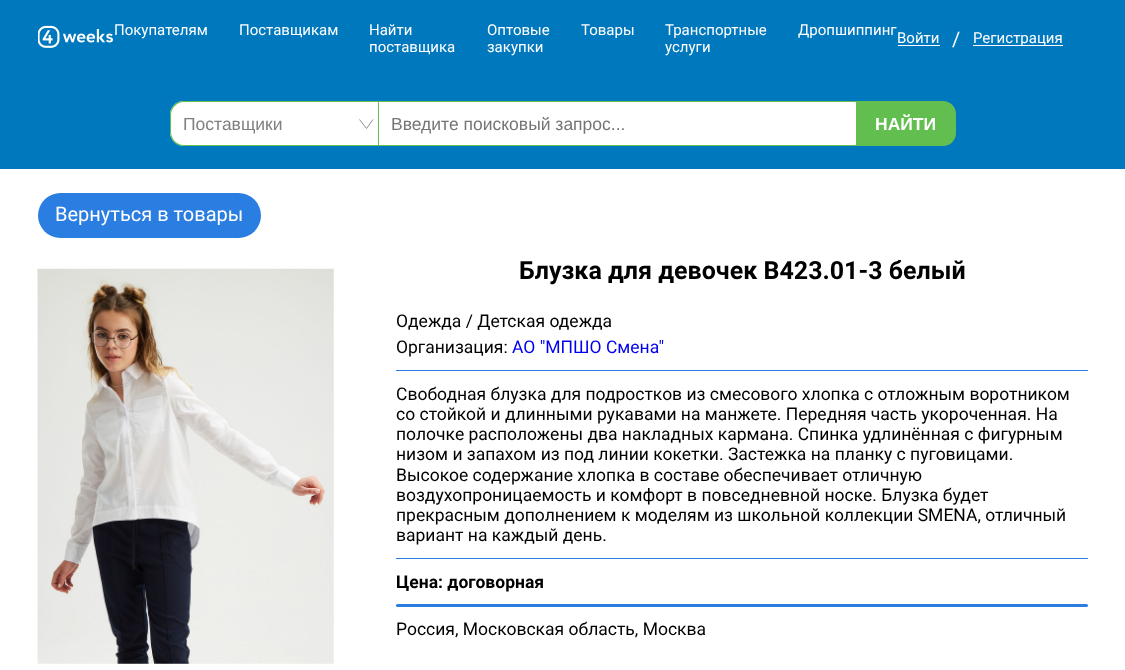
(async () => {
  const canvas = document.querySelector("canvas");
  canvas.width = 1125;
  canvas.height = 670;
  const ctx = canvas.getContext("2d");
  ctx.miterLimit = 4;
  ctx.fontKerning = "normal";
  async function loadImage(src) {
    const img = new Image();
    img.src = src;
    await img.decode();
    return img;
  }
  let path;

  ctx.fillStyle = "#ffffff";
  ctx.fillRect(0, 0, 1125, 670);
  ctx.fillStyle = "#0078be";
  ctx.fillRect(0, 0, 1125, 169);
  ctx.drawImage(await loadImage("img/1.png"), 38, 25, 75, 23);
  ctx.fillStyle = "#ffffff";
  ctx.fillRect(898, 45, 42, 1);
  ctx.fillRect(973, 45, 90, 1);
  ctx.beginPath();
  ctx.roundRect(170, 101, 208, 45, [14, 0, 0, 14]);
  ctx.fill();
  ctx.fillStyle = "#61be4f";
  path = new Path2D("M184 101H378V146H184C176 146 170 140 170 132V115C170 107 176 101 184 101ZM184 102H378V145H184C177 145 171 139 171 132V115C171 108 177 102 184 102Z");
  ctx.fill(path, "evenodd");
  path = new Path2D("M373 119.5L366.5 128.5L359.5 119.5");
  ctx.strokeStyle = "#808080";
  ctx.lineWidth = 0.9;
  ctx.stroke(path);
  for (const [x, y, w, h, color] of [
    [379, 102, 477, 43, "#ffffff"],
    [378, 101, 478, 1, "#61be4f"],
    [378, 145, 478, 1, "#61be4f"],
    [378, 101, 1, 45, "#61be4f"],
  ]) {
    ctx.fillStyle = color;
    ctx.fillRect(x, y, w, h);
  }
  ctx.beginPath();
  ctx.roundRect(856, 101, 100, 45, [0, 13, 13, 0]);
  ctx.fill();
  ctx.fillStyle = "#2a7de1";
  ctx.beginPath();
  ctx.roundRect(38, 193, 223, 45, 22.5);
  ctx.fill();
  ctx.drawImage(await loadImage("img/2.png"), 37, 268, 297, 396);
  ctx.beginPath();
  ctx.roundRect(396, 370, 692, 1, 0.5);
  ctx.fill();
  ctx.beginPath();
  ctx.roundRect(396, 558, 692, 1, 0.5);
  ctx.fill();
  ctx.beginPath();
  ctx.roundRect(396, 604, 692, 3, 1.5);
  ctx.fill();
  ctx.font = "15px Roboto";
  ctx.fillStyle = "#ffffff";
  for (const [text, x, y] of [
    ["Покупателям", 114, 35],
    ["Поставщикам", 239, 35],
    ["Найти", 369, 35],
    ["поставщика", 369, 52],
    ["Оптовые", 487, 35],
    ["закупки", 487, 52],
    ["Товары", 581, 35],
    ["Транспортные", 665, 35],
    ["услуги", 665, 52],
    ["Дропшиппинг", 798, 35],
    ["Войти", 897, 43],
  ]) {
    ctx.fillText(text, x, y);
  }
  ctx.font = "20px Roboto";
  ctx.fillText("/", 952, 46);
  ctx.font = "15px Roboto";
  ctx.fillText("Регистрация", 973, 43);
  ctx.font = "17.5px Liberation Sans";
  ctx.fillStyle = "#808080";
  ctx.fillText("Поставщики", 183, 130);
  ctx.fillStyle = "#757575";
  ctx.fillText("Введите поисковый запрос...", 391, 130);
  ctx.font = "bold 17.5px Liberation Sans";
  ctx.fillStyle = "#ffffff";
  ctx.fillText("НАЙТИ", 875, 130);
  ctx.font = "20px Roboto";
  ctx.fillText("Вернуться в товары", 55, 221);
  ctx.font = "bold 25px Roboto";
  ctx.fillStyle = "#000000";
  ctx.fillText("Блузка для девочек B423.01-3 белый", 519, 279);
  ctx.font = "17.5px Roboto";
  ctx.fillText("Одежда / Детская одежда", 396, 327);
  ctx.fillText("Организация:", 396, 353);
  ctx.fillStyle = "#0000ee";
  ctx.fillText("АО \"МПШО Смена\"", 512, 353);
  ctx.fillStyle = "#000000";
  for (const [text, x, y] of [
    ["Свободная блузка для подростков из смесового хлопка с отложным воротником", 396, 400],
    ["со стойкой и длинными рукавами на манжете. Передняя часть укороченная. На", 396, 420],
    ["полочке расположены два накладных кармана. Спинка удлинённая с фигурным", 396, 440],
    ["низом и запахом из под линии кокетки. Застежка на планку с пуговицами.", 396, 460],
    ["Высокое содержание хлопка в составе обеспечивает отличную", 396, 481],
    ["воздухопроницаемость и комфорт в повседневной носке. Блузка будет", 396, 501],
    ["прекрасным дополнением к моделям из школьной коллекции SMENA, отличный", 396, 521],
    ["вариант на каждый день.", 396, 541],
  ]) {
    ctx.fillText(text, x, y);
  }
  ctx.font = "bold 17.5px Roboto";
  ctx.fillText("Цена: договорная", 396, 588);
  ctx.font = "17.5px Roboto";
  ctx.fillText("Россия, Московская область, Москва", 396, 635);
})();
